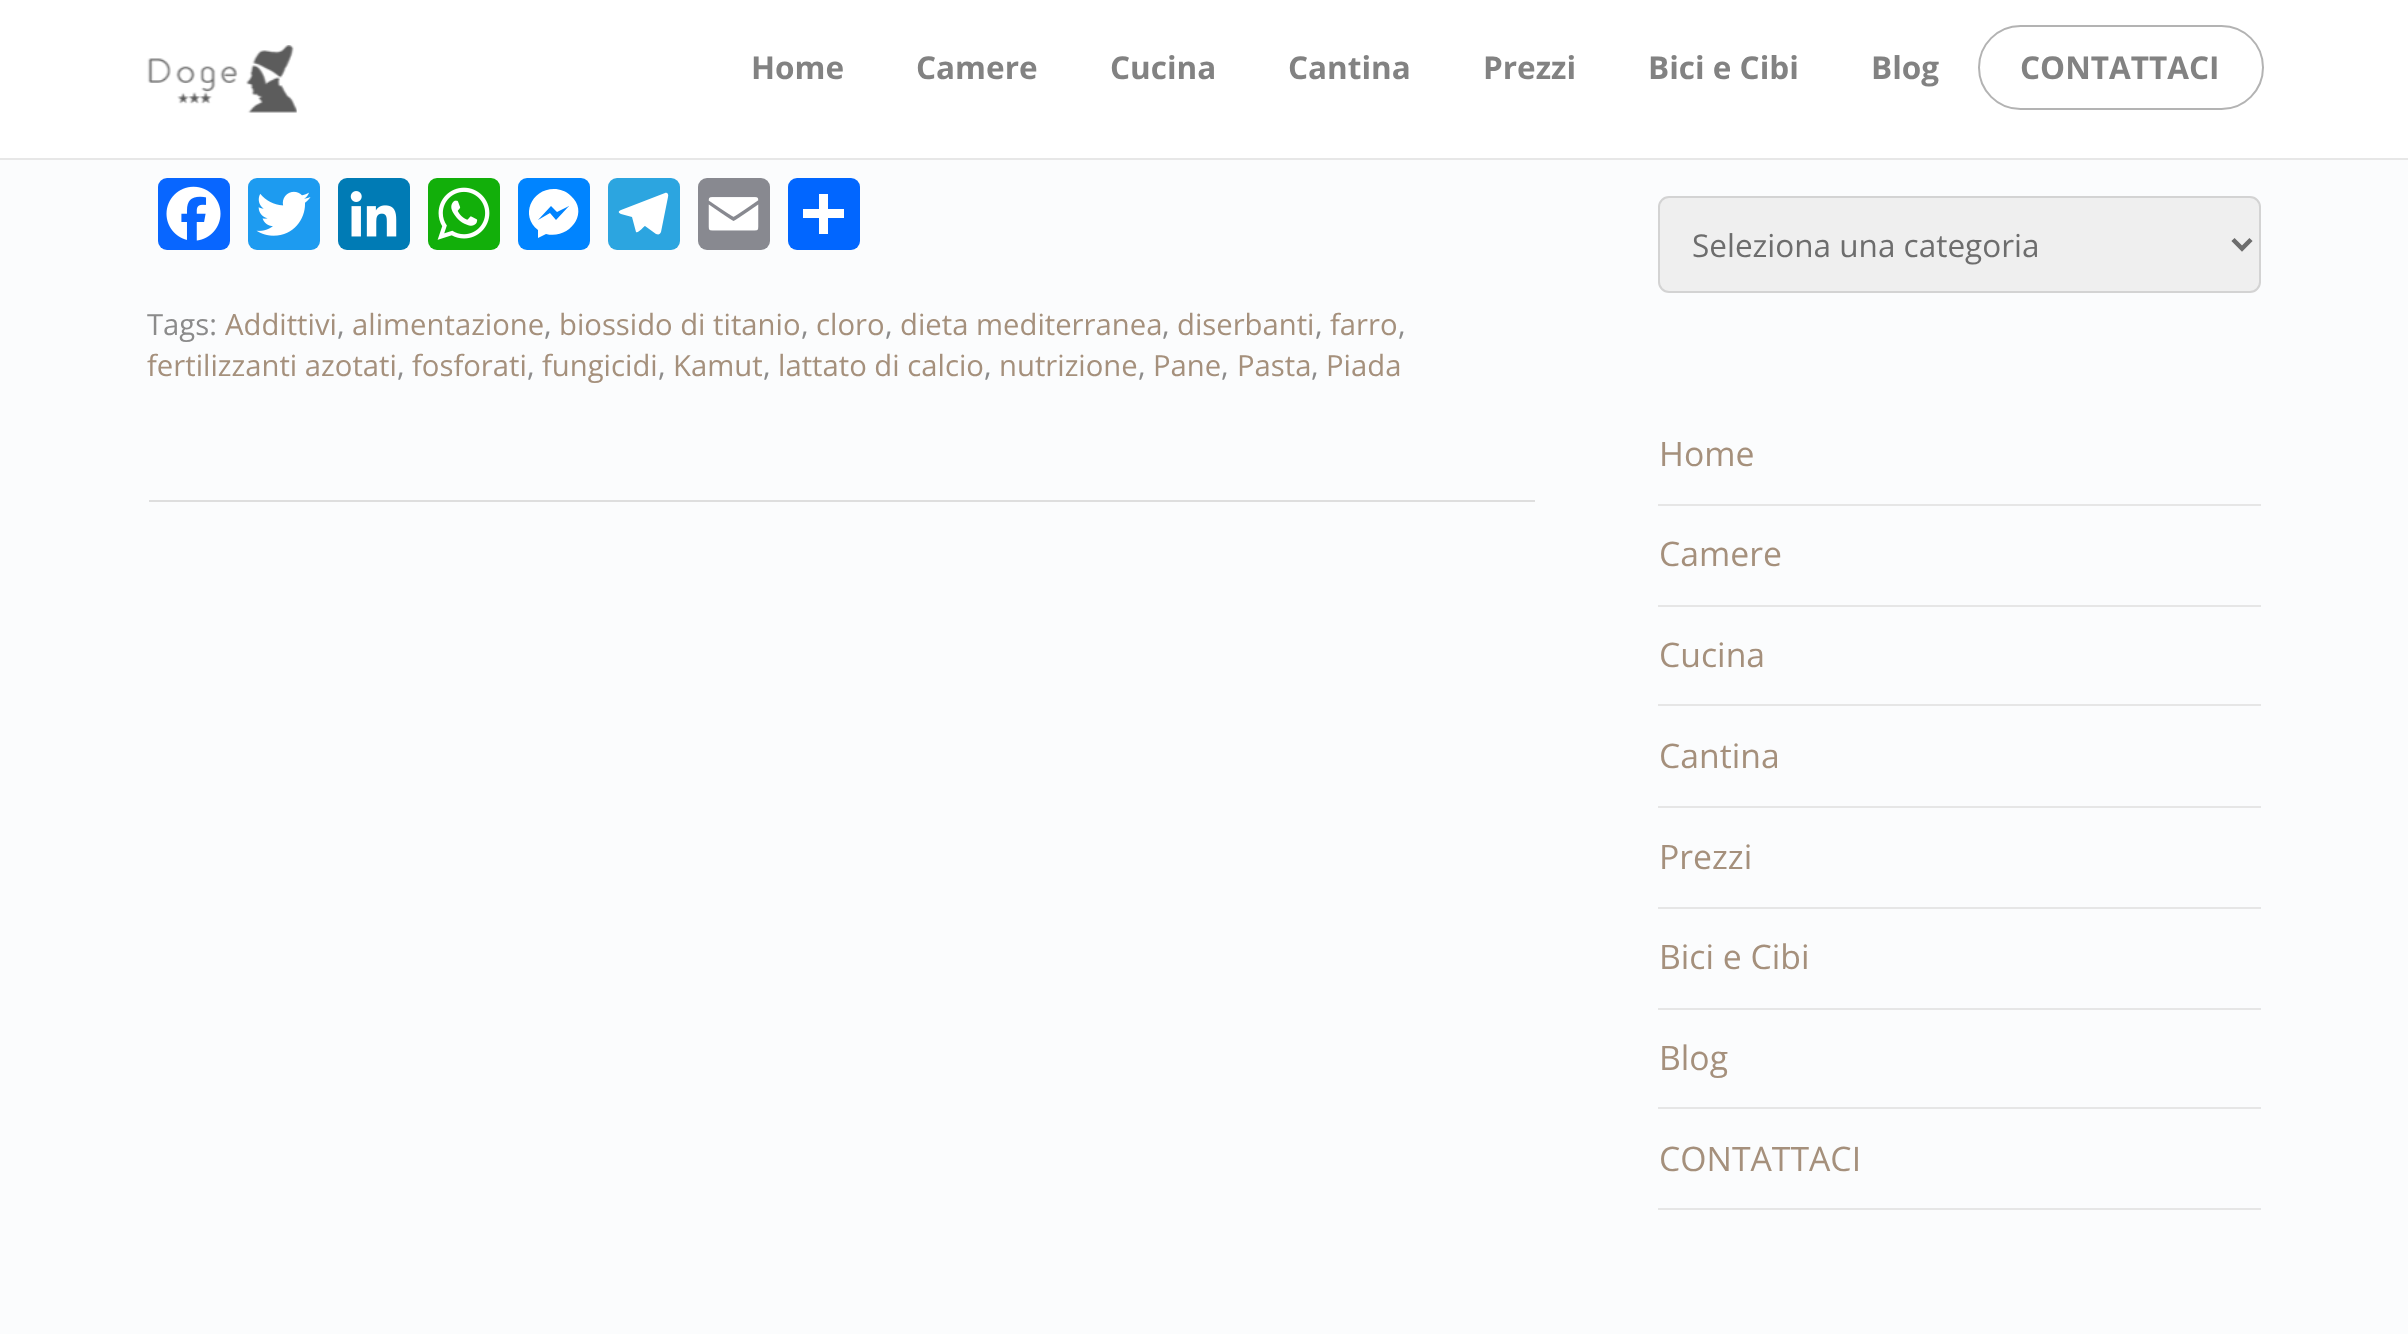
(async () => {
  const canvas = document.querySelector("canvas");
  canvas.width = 2408;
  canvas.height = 1334;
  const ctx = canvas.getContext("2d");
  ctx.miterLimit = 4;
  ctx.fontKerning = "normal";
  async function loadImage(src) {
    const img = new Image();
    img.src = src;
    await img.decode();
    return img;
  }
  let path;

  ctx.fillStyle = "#fbfcfd";
  ctx.fillRect(0, 0, 2408, 1334);
  ctx.fillStyle = "#ffffff";
  ctx.fillRect(0, 0, 2408, 158);
  ctx.fillStyle = "#e7e7e7";
  ctx.fillRect(0, 158, 2408, 2);
  ctx.drawImage(await loadImage("img/1.png"), 147, 45, 150, 68);
  ctx.beginPath();
  ctx.roundRect(1979, 26, 284, 83, 41.5);
  ctx.strokeStyle = "#b3b3b3";
  ctx.lineWidth = 2;
  ctx.stroke();
  ctx.fillStyle = "#dedede";
  ctx.fillRect(149, 500, 1386, 2);
  ctx.fillStyle = "#0866ff";
  ctx.beginPath();
  ctx.roundRect(158, 178, 72, 72, 9);
  ctx.fill();
  ctx.drawImage(await loadImage("img/2.png"), 166, 186, 55, 55);
  ctx.fillStyle = "#1d9bf0";
  ctx.beginPath();
  ctx.roundRect(248, 178, 72, 72, 9);
  ctx.fill();
  ctx.drawImage(await loadImage("img/3.png"), 256, 191, 55, 45);
  ctx.fillStyle = "#007bb5";
  ctx.beginPath();
  ctx.roundRect(338, 178, 72, 72, 9);
  ctx.fill();
  ctx.drawImage(await loadImage("img/4.png"), 350, 191, 47, 46);
  ctx.fillStyle = "#12af0a";
  ctx.beginPath();
  ctx.roundRect(428, 178, 72, 72, 9);
  ctx.fill();
  ctx.drawImage(await loadImage("img/5.png"), 437, 187, 53, 53);
  ctx.fillStyle = "#0084ff";
  ctx.beginPath();
  ctx.roundRect(518, 178, 72, 72, 9);
  ctx.fill();
  ctx.fillStyle = "#ffffff";
  path = new Path2D("M554 189C531 189 520 216 538 230V238L546 234C569 240 590 213 571 196C566 191 560 189 554 189M556 220L550 213L538 220L551 206L557 212L569 206Z");
  ctx.fill(path);
  ctx.fillStyle = "#2ca5e0";
  ctx.beginPath();
  ctx.roundRect(608, 178, 72, 72, 9);
  ctx.fill();
  ctx.fillStyle = "#ffffff";
  path = new Path2D("M665 193L621 210C618 211 618 213 621 214L632 217L636 232C638 234 644 226 645 226L656 234C659 235 660 234 661 232L668 197C669 194 667 192 665 193Z");
  ctx.fill(path);
  ctx.fillStyle = "#888990";
  ctx.beginPath();
  ctx.roundRect(698, 178, 72, 72, 9);
  ctx.fill();
  ctx.drawImage(await loadImage("img/6.png"), 708, 197, 51, 34);
  ctx.fillStyle = "#0166ff";
  ctx.beginPath();
  ctx.roundRect(788, 178, 72, 72, 9);
  ctx.fill();
  ctx.fillStyle = "#ffffff";
  ctx.fillRect(819, 194, 9, 40);
  ctx.fillRect(803, 209, 41, 9);
  ctx.fillStyle = "#efefef";
  ctx.beginPath();
  ctx.roundRect(1659, 197, 601, 95, 10);
  ctx.fill();
  ctx.strokeStyle = "#d3d3d3";
  ctx.stroke();
  path = new Path2D("M2233 239.5L2242 248.5L2251 239.5");
  ctx.strokeStyle = "#6d6d6d";
  ctx.lineWidth = 4.5;
  ctx.stroke(path);
  for (const [x, y, w, h, color] of [
    [1658, 504, 603, 2, "#e6e6e6"],
    [1658, 605, 603, 2, "#e6e6e6"],
    [1658, 704, 603, 2, "#e6e6e6"],
    [1658, 806, 603, 2, "#e6e6e6"],
    [1658, 907, 603, 2, "#e6e6e6"],
    [1658, 1008, 603, 2, "#e6e6e6"],
    [1658, 1107, 603, 2, "#e6e6e6"],
    [1658, 1208, 603, 2, "#e6e6e6"],
  ]) {
    ctx.fillStyle = color;
    ctx.fillRect(x, y, w, h);
  }
  ctx.font = "bold 31.5px Open Sans";
  ctx.fillStyle = "#828282";
  for (const [text, x, y] of [
    ["Home", 751, 79],
    ["Camere", 916, 79],
    ["Cucina", 1110, 79],
    ["Cantina", 1288, 79],
    ["Prezzi", 1483, 79],
    ["Bici e Cibi", 1648, 79],
    ["Blog", 1871, 79],
    ["CONTATTACI", 2020, 79],
  ]) {
    ctx.fillText(text, x, y);
  }
  ctx.font = "29.25px Open Sans";
  ctx.fillStyle = "#8b8b8b";
  ctx.fillText("Tags:", 147, 335);
  ctx.fillStyle = "#a5907c";
  ctx.fillText("Addittivi", 225, 335);
  ctx.fillStyle = "#8b8b8b";
  ctx.fillText(",", 337, 335);
  ctx.fillStyle = "#a5907c";
  ctx.fillText("alimentazione", 352, 335);
  ctx.fillStyle = "#8b8b8b";
  ctx.fillText(",", 544, 335);
  ctx.fillStyle = "#a5907c";
  ctx.fillText("biossido di titanio", 559, 335);
  ctx.fillStyle = "#8b8b8b";
  ctx.fillText(",", 801, 335);
  ctx.fillStyle = "#a5907c";
  ctx.fillText("cloro", 816, 335);
  ctx.fillStyle = "#8b8b8b";
  ctx.fillText(",", 885, 335);
  ctx.fillStyle = "#a5907c";
  ctx.fillText("dieta mediterranea", 900, 335);
  ctx.fillStyle = "#8b8b8b";
  ctx.fillText(",", 1162, 335);
  ctx.fillStyle = "#a5907c";
  ctx.fillText("diserbanti", 1177, 335);
  ctx.fillStyle = "#8b8b8b";
  ctx.fillText(",", 1315, 335);
  ctx.fillStyle = "#a5907c";
  ctx.fillText("farro", 1330, 335);
  ctx.fillStyle = "#8b8b8b";
  ctx.fillText(",", 1398, 335);
  ctx.fillStyle = "#a5907c";
  ctx.fillText("fertilizzanti azotati", 147, 376);
  ctx.fillStyle = "#8b8b8b";
  ctx.fillText(",", 397, 376);
  ctx.fillStyle = "#a5907c";
  ctx.fillText("fosforati", 412, 376);
  ctx.fillStyle = "#8b8b8b";
  ctx.fillText(",", 527, 376);
  ctx.fillStyle = "#a5907c";
  ctx.fillText("fungicidi", 542, 376);
  ctx.fillStyle = "#8b8b8b";
  ctx.fillText(",", 658, 376);
  ctx.fillStyle = "#a5907c";
  ctx.fillText("Kamut", 673, 376);
  ctx.fillStyle = "#8b8b8b";
  ctx.fillText(",", 763, 376);
  ctx.fillStyle = "#a5907c";
  ctx.fillText("lattato di calcio", 778, 376);
  ctx.fillStyle = "#8b8b8b";
  ctx.fillText(",", 984, 376);
  ctx.fillStyle = "#a5907c";
  ctx.fillText("nutrizione", 999, 376);
  ctx.fillStyle = "#8b8b8b";
  ctx.fillText(",", 1138, 376);
  ctx.fillStyle = "#a5907c";
  ctx.fillText("Pane", 1153, 376);
  ctx.fillStyle = "#8b8b8b";
  ctx.fillText(",", 1221, 376);
  ctx.fillStyle = "#a5907c";
  ctx.fillText("Pasta", 1237, 376);
  ctx.fillStyle = "#8b8b8b";
  ctx.fillText(",", 1311, 376);
  ctx.fillStyle = "#a5907c";
  ctx.fillText("Piada", 1326, 376);
  ctx.font = "31.5px Open Sans";
  ctx.fillStyle = "#6d6d6d";
  ctx.fillText("Seleziona una categoria", 1692, 257);
  ctx.font = "33.75px Open Sans";
  ctx.fillStyle = "#a5907c";
  for (const [text, x, y] of [
    ["Home", 1659, 466],
    ["Camere", 1659, 566],
    ["Cucina", 1659, 667],
    ["Cantina", 1659, 768],
    ["Prezzi", 1659, 869],
    ["Bici e Cibi", 1659, 969],
    ["Blog", 1659, 1070],
    ["CONTATTACI", 1659, 1171],
  ]) {
    ctx.fillText(text, x, y);
  }
})();
